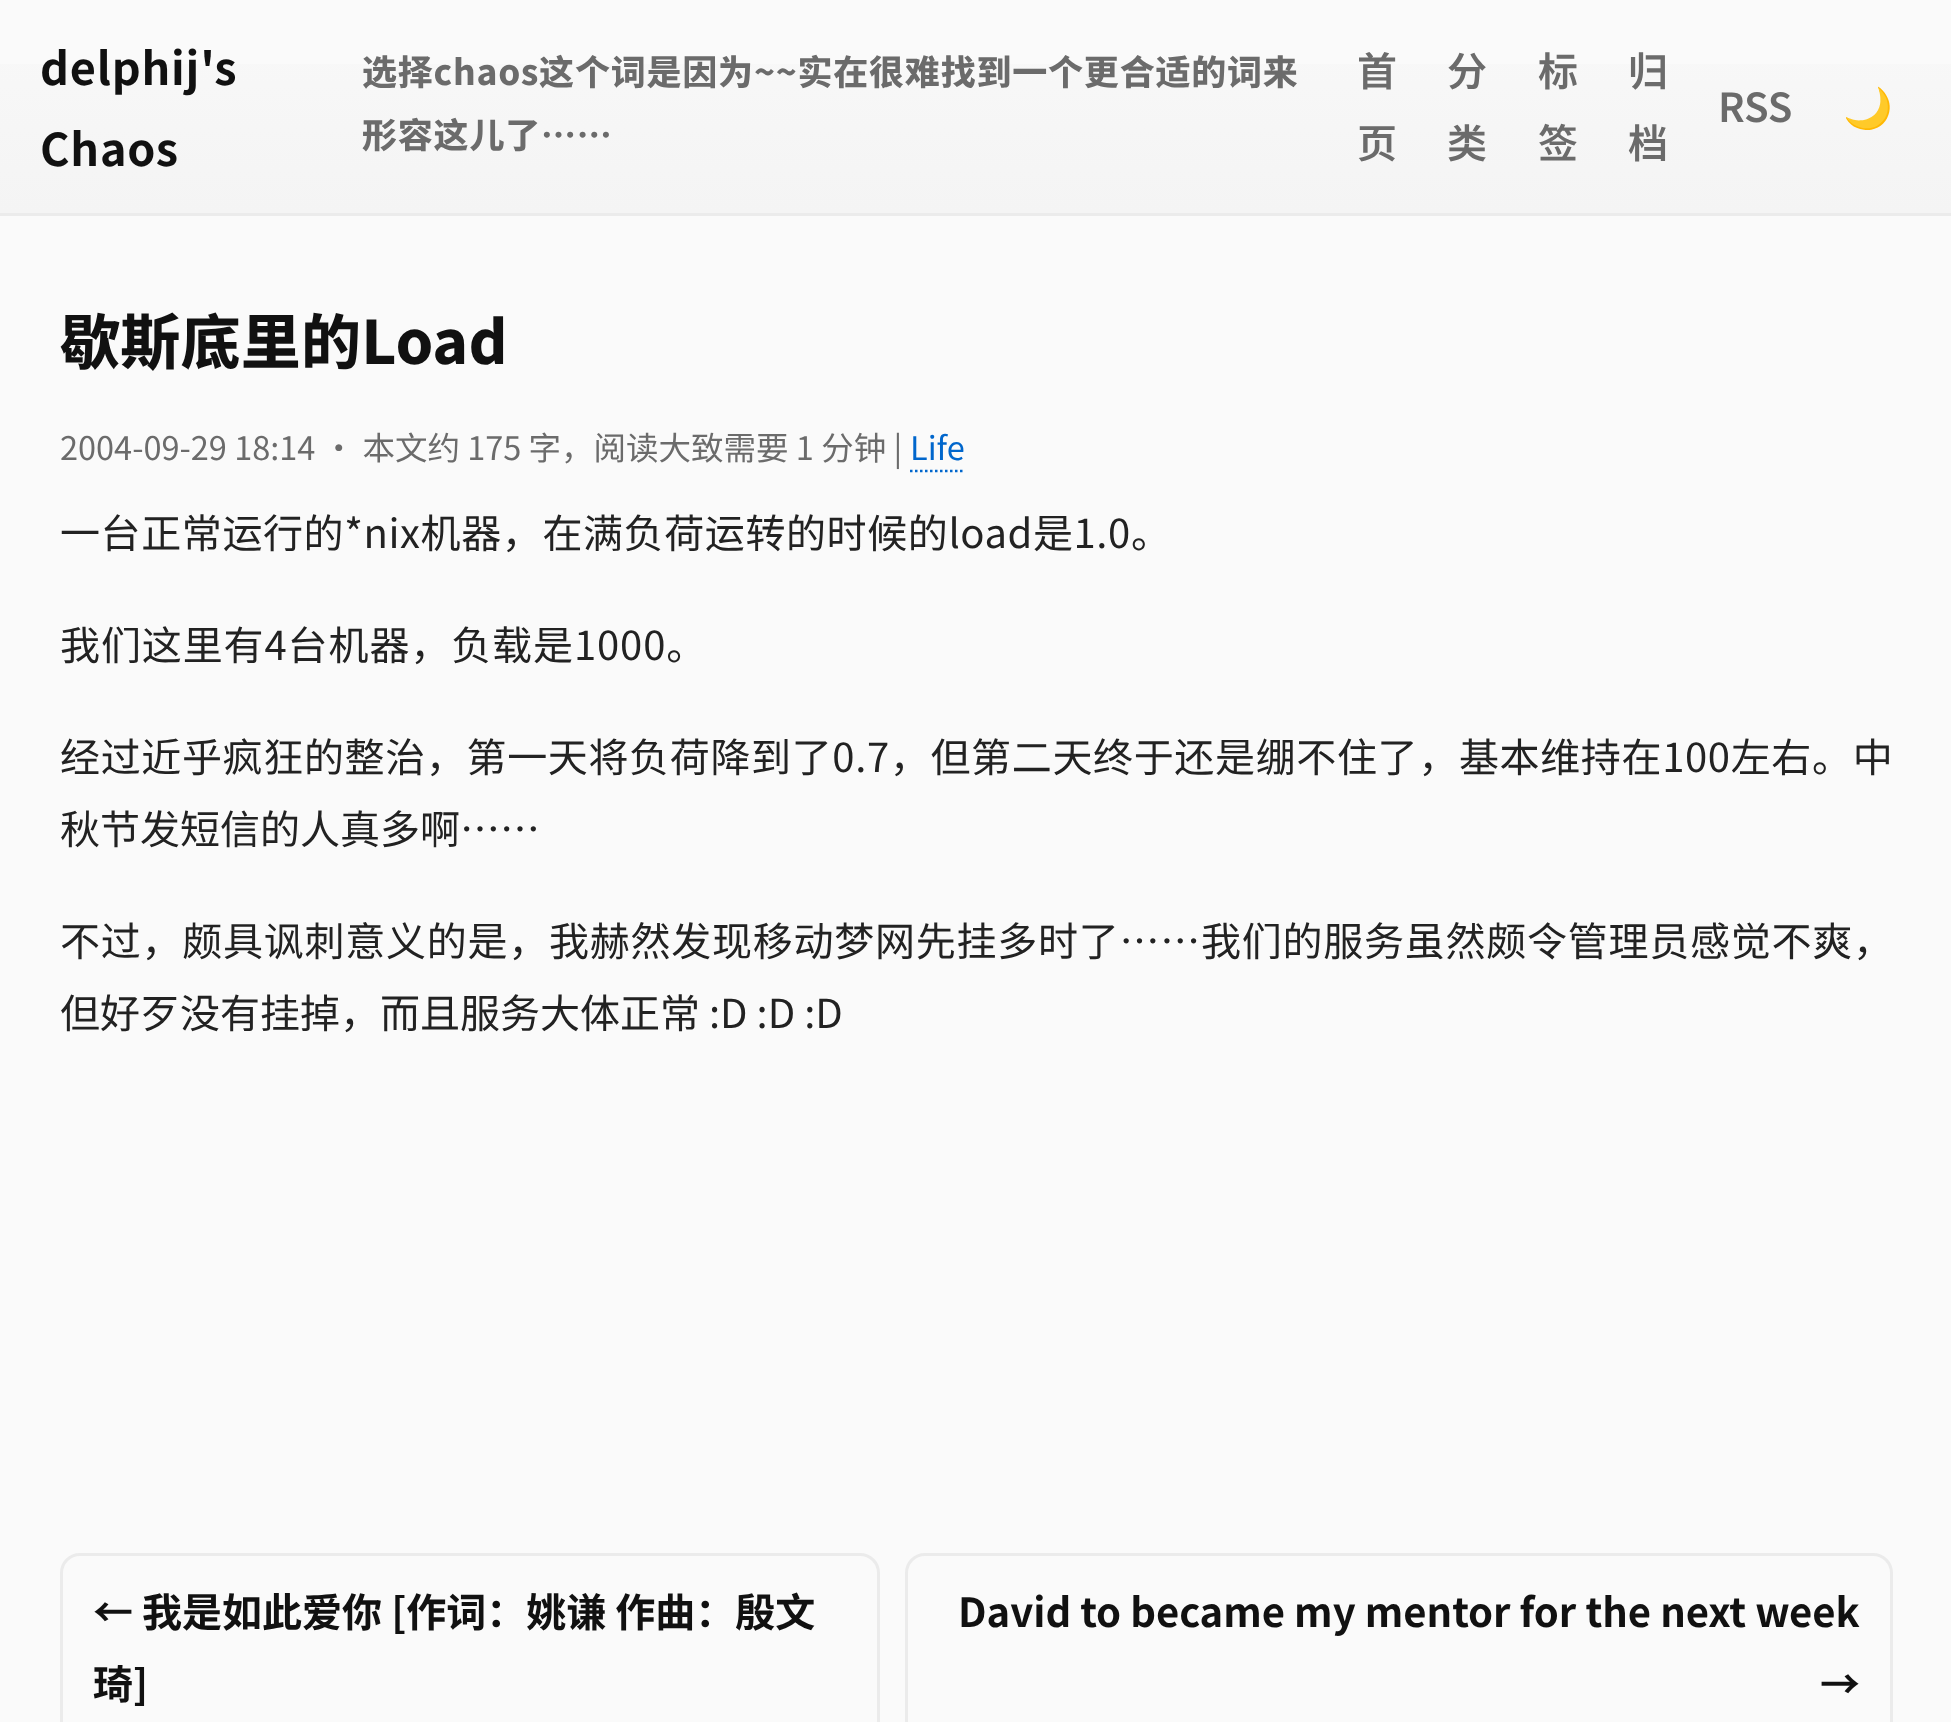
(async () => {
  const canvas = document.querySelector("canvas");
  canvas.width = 1951;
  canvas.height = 1722;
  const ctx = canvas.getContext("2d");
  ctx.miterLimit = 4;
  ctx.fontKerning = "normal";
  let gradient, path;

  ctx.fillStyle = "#fafafa";
  ctx.fillRect(0, 0, 1951, 1722);
  gradient = ctx.createLinearGradient(976, 0, 976, 213);
  gradient.addColorStop(0, "#f9f9f9");
  gradient.addColorStop(1, "#f4f4f4");
  ctx.fillStyle = gradient;
  ctx.fillRect(0, 64, 1951, 149);
  ctx.fillStyle = "#ebebeb";
  ctx.fillRect(0, 213, 1951, 3);
  path = new Path2D("M910 471H965");
  ctx.strokeStyle = "#0066cc";
  ctx.lineWidth = 2.5;
  ctx.setLineDash([2.5, 2.5]);
  ctx.stroke(path);
  ctx.beginPath();
  ctx.roundRect(61.5, 1554.5, 817, 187, 18.5);
  ctx.strokeStyle = "#ebebeb";
  ctx.lineWidth = 3;
  ctx.setLineDash([]);
  ctx.stroke();
  ctx.beginPath();
  ctx.roundRect(906.5, 1554.5, 985, 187, 18.5);
  ctx.stroke();
  ctx.letterSpacing = "0.8px";
  ctx.font = "bold 45px Noto Sans SC";
  ctx.fillStyle = "#111111";
  ctx.fillText("delphij's", 40, 85);
  ctx.fillText("Chaos", 40, 166);
  ctx.font = "800 35px Noto Sans SC";
  ctx.fillStyle = "#6b6b6b";
  ctx.fillText("选择chaos这个词是因为~~实在很难找到一个更合适的词来", 362, 85);
  ctx.fillText("形容这儿了……", 362, 148);
  ctx.letterSpacing = "0px";
  ctx.font = "600 40px Noto Sans SC";
  for (const [text, x, y] of [
    ["首", 1357, 86],
    ["页", 1357, 158],
    ["分", 1447, 86],
    ["类", 1447, 158],
    ["标", 1538, 86],
    ["签", 1538, 158],
    ["归", 1628, 86],
    ["档", 1628, 158],
    ["RSS", 1718, 122],
  ]) {
    ctx.fillText(text, x, y);
  }
  ctx.font = "bold 40px Noto Color Emoji";
  ctx.fillStyle = "#000000";
  ctx.fillText("🌙", 1843, 122);
  ctx.letterSpacing = "0.25px";
  ctx.font = "800 60px Noto Sans SC";
  ctx.fillStyle = "#111111";
  ctx.fillText("歇斯底里的Load", 60, 364);
  ctx.letterSpacing = "0px";
  ctx.font = "32.5px Noto Sans SC";
  ctx.fillStyle = "#6b6b6b";
  ctx.fillText("2004-09-29 18:14 • 本文约 175 字，阅读大致需要 1 分钟 |", 60, 460);
  ctx.fillStyle = "#0066cc";
  ctx.fillText("Life", 910, 460);
  ctx.letterSpacing = "0.6px";
  ctx.font = "40px Noto Sans SC";
  ctx.fillStyle = "#222222";
  ctx.fillText("一台正常运行的*nix机器，在满负荷运转的时候的load是1.0。", 60, 548);
  ctx.letterSpacing = "0.9px";
  ctx.fillText("我们这里有4台机器，负载是1000。", 60, 660);
  ctx.letterSpacing = "0.65px";
  ctx.fillText("经过近乎疯狂的整治，第一天将负荷降到了0.7，但第二天终于还是绷不住了，基本维持在100左右。中", 60, 772);
  ctx.letterSpacing = "0px";
  ctx.fillText("秋节发短信的人真多啊……", 60, 844);
  ctx.letterSpacing = "0.75px";
  ctx.fillText("不过，颇具讽刺意义的是，我赫然发现移动梦网先挂多时了……我们的服务虽然颇令管理员感觉不爽，", 60, 956);
  ctx.letterSpacing = "0px";
  ctx.fillText("但好歹没有挂掉，而且服务大体正常 :D :D :D", 60, 1028);
  ctx.font = "bold 40px Noto Sans SC";
  ctx.fillStyle = "#111111";
  for (const [text, x, y] of [
    ["← 我是如此爱你 [作词：姚谦 作曲：殷文", 93, 1627],
    ["琦]", 93, 1699],
    ["David to became my mentor for the next week", 958, 1627],
    ["→", 1820, 1699],
  ]) {
    ctx.fillText(text, x, y);
  }
})();
